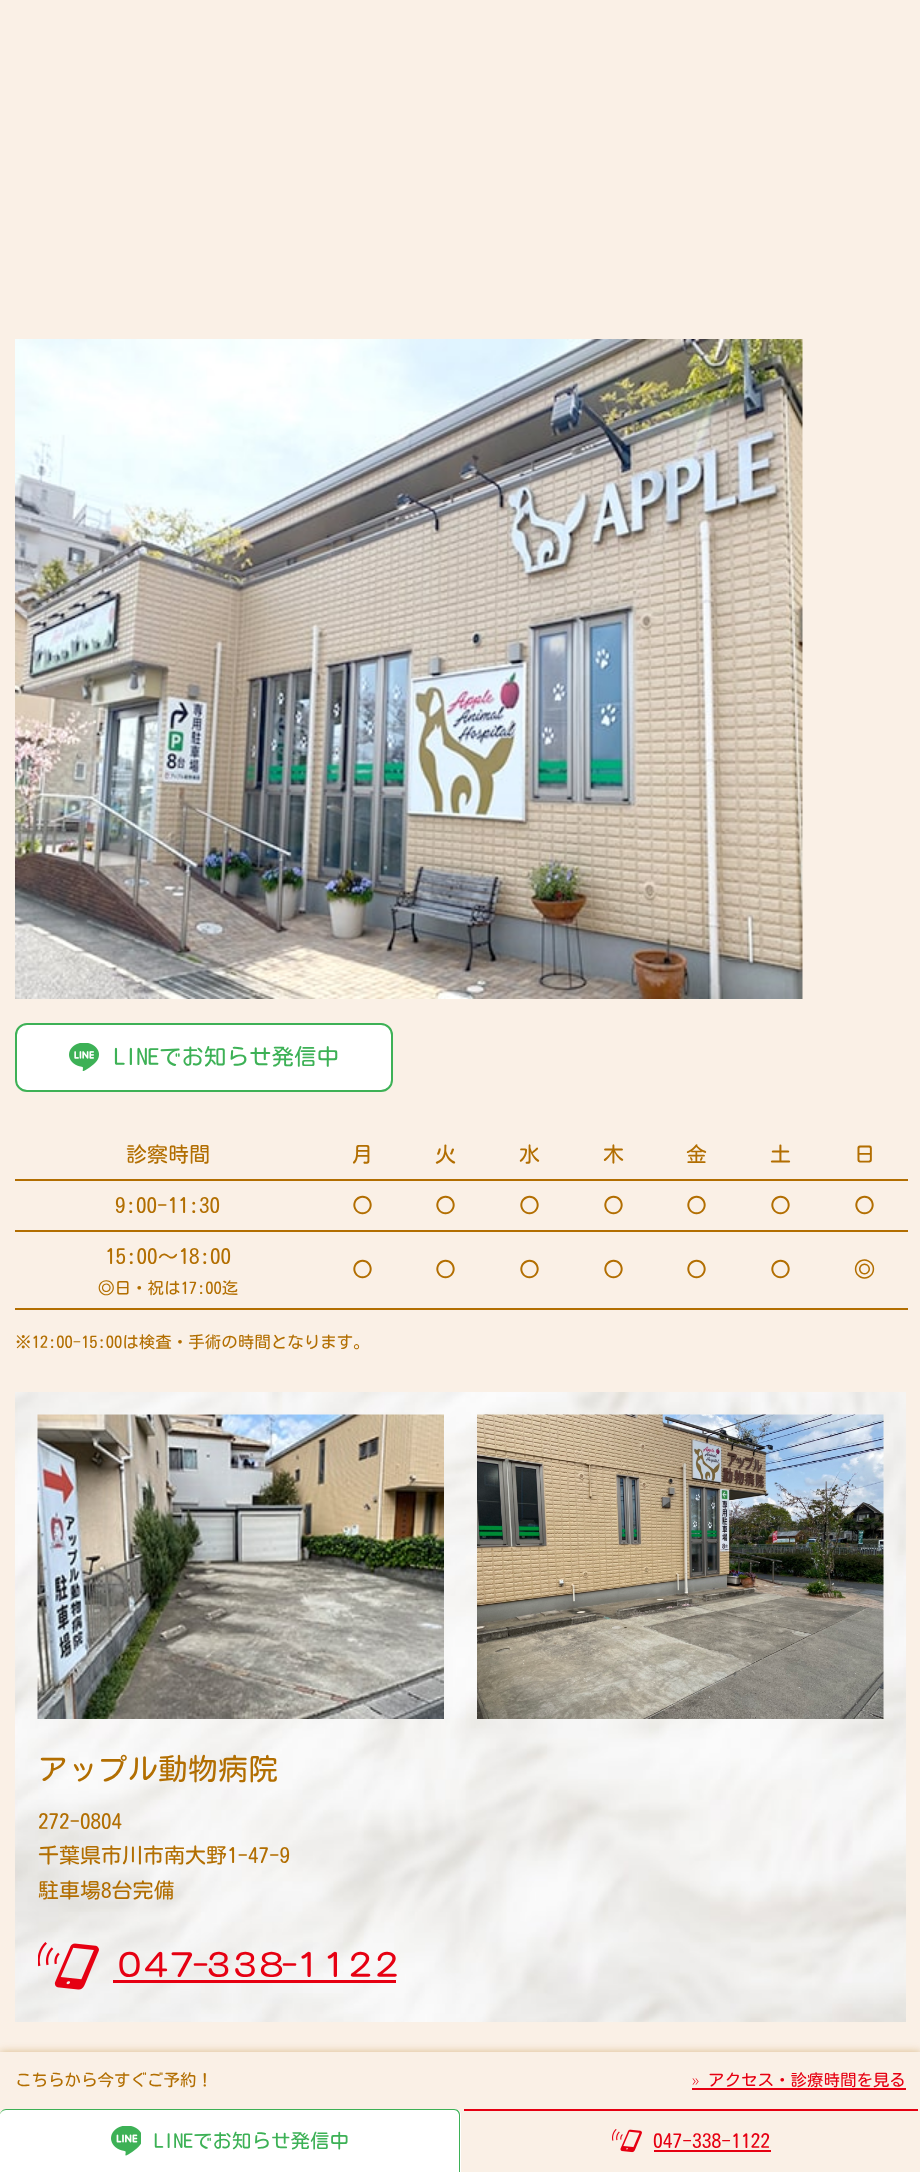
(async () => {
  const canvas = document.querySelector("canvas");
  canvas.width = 920;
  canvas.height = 2172;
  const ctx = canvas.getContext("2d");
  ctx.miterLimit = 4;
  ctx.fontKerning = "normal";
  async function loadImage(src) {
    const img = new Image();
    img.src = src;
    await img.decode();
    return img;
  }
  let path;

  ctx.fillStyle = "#faf0e6";
  ctx.fillRect(0, 0, 920, 2172);
  ctx.drawImage(await loadImage("img/1.png"), 15, 339, 788, 660);
  ctx.fillStyle = "#ffffff";
  ctx.beginPath();
  ctx.roundRect(16, 1024, 376, 67, 11);
  ctx.fill();
  ctx.strokeStyle = "#3db156";
  ctx.lineWidth = 2;
  ctx.stroke();
  ctx.drawImage(await loadImage("img/2.png"), 69, 1043, 30, 28);
  for (const [x, y, w, h, color] of [
    [15, 1179, 893, 2, "#b26e01"],
    [15, 1230, 893, 2, "#b26e01"],
    [15, 1308, 893, 2, "#b26e01"],
  ]) {
    ctx.fillStyle = color;
    ctx.fillRect(x, y, w, h);
  }
  ctx.drawImage(await loadImage("img/3.png"), 15, 1392, 891, 630);
  ctx.drawImage(await loadImage("img/4.png"), 37, 1414, 407, 305);
  ctx.drawImage(await loadImage("img/5.png"), 477, 1414, 407, 305);
  ctx.drawImage(await loadImage("img/6.png"), 38, 1942, 61, 48);
  ctx.fillStyle = "#e60012";
  ctx.fillRect(113, 1980, 283, 3);
  ctx.fillStyle = "rgba(169, 104, 0, 0.4)";
  ctx.filter = "blur(4px)";
  ctx.beginPath();
  ctx.rect(0, 2052, 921, 120);
  ctx.fill();
  ctx.filter = "none";
  ctx.fillStyle = "#faf0e6";
  ctx.fillRect(0, 2052, 920, 120);
  ctx.fillStyle = "#e60012";
  ctx.fillRect(692, 2088, 214, 2);
  ctx.fillStyle = "#ffffff";
  ctx.beginPath();
  ctx.roundRect(0, 2109, 461, 63, [6, 6, 0, 0]);
  ctx.fill();
  ctx.fillStyle = "#3db156";
  path = new Path2D("M6 2109H454C458 2109 460 2112 460 2115V2172H0V2115C0 2112 3 2109 6 2109ZM6 2110H454C457 2110 459 2113 459 2115V2172H0V2115C0 2113 3 2110 6 2110Z");
  ctx.fill(path, "evenodd");
  ctx.drawImage(await loadImage("img/7.png"), 111, 2126, 30, 30);
  ctx.fillStyle = "#e60012";
  ctx.fillRect(464, 2109, 454, 2);
  ctx.drawImage(await loadImage("img/8.png"), 612, 2129, 30, 24);
  ctx.fillRect(654, 2150, 117, 2);
  ctx.font = "22.5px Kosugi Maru";
  ctx.fillStyle = "#3db156";
  ctx.fillText("LINEでお知らせ発信中", 114, 1065);
  ctx.font = "21px Kosugi Maru";
  ctx.fillStyle = "#b26e01";
  for (const [text, x, y] of [
    ["診察時間", 126, 1162],
    ["月", 352, 1162],
    ["火", 435, 1162],
    ["水", 519, 1162],
    ["木", 603, 1162],
    ["金", 686, 1162],
    ["土", 770, 1162],
    ["日", 854, 1162],
    ["9:00-11:30", 115, 1213],
    ["〇", 352, 1213],
    ["〇", 435, 1213],
    ["〇", 519, 1213],
    ["〇", 603, 1213],
    ["〇", 686, 1213],
    ["〇", 770, 1213],
    ["〇", 854, 1213],
    ["15:00〜18:00", 105, 1264],
  ]) {
    ctx.fillText(text, x, y);
  }
  ctx.font = "16.5px Kosugi Maru";
  ctx.fillText("◎日・祝は17:00迄", 98, 1294);
  ctx.font = "21px Kosugi Maru";
  for (const [text, x, y] of [
    ["〇", 352, 1277],
    ["〇", 435, 1277],
    ["〇", 519, 1277],
    ["〇", 603, 1277],
    ["〇", 686, 1277],
    ["〇", 770, 1277],
    ["◎", 854, 1277],
  ]) {
    ctx.fillText(text, x, y);
  }
  ctx.font = "16.5px Kosugi Maru";
  ctx.fillText("※12:00-15:00は検査・手術の時間となります。", 15, 1348);
  ctx.font = "30px Kosugi Maru";
  ctx.fillText("アップル動物病院", 38, 1780);
  ctx.font = "21px Kosugi Maru";
  for (const [text, x, y] of [
    ["272-0804", 38, 1829],
    ["千葉県市川市南大野1-47-9", 38, 1863],
    ["駐車場8台完備", 38, 1898],
  ]) {
    ctx.fillText(text, x, y);
  }
  ctx.letterSpacing = "-6.6px";
  ctx.font = "33px Kosugi Maru";
  ctx.fillStyle = "#e60012";
  ctx.fillText("０４７-３３８-１１２２", 113, 1977);
  ctx.letterSpacing = "0px";
  ctx.font = "16.5px Kosugi Maru";
  ctx.fillStyle = "#b26e01";
  ctx.fillText("こちらから今すぐご予約！", 15, 2086);
  ctx.font = "300 16.5px Open Sans";
  ctx.fillStyle = "#e60012";
  ctx.fillText("»", 692, 2086);
  ctx.font = "16.5px Kosugi Maru";
  ctx.fillText("アクセス・診療時間を見る", 708, 2086);
  ctx.font = "19.5px Kosugi Maru";
  ctx.fillStyle = "#3db156";
  ctx.fillText("LINEでお知らせ発信中", 154, 2148);
  ctx.fillStyle = "#e60012";
  ctx.fillText("047-338-1122", 653, 2148);
})();
